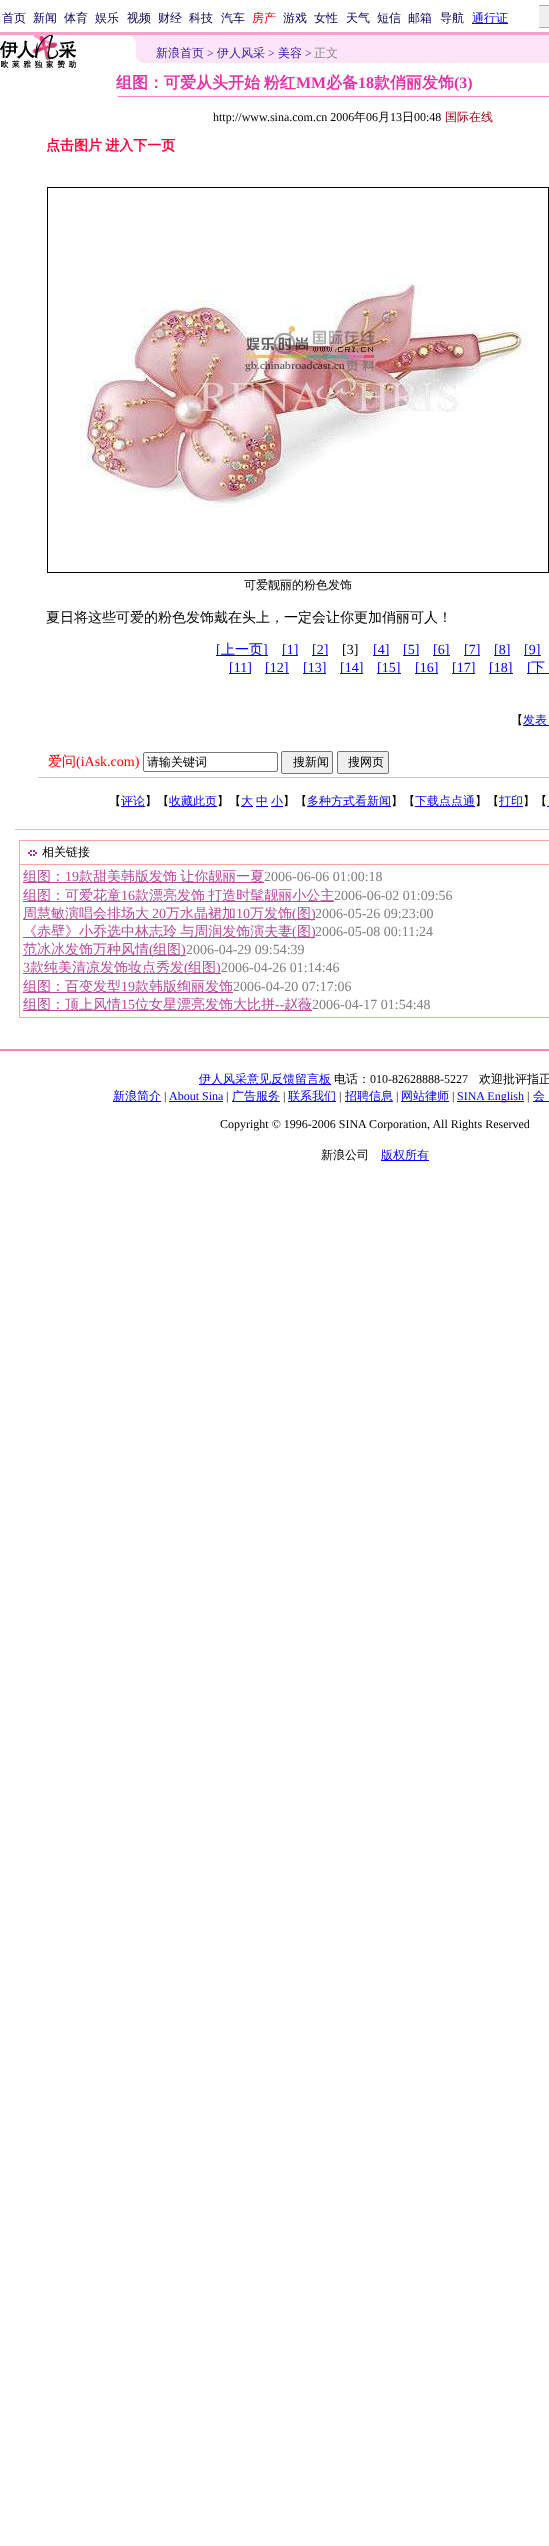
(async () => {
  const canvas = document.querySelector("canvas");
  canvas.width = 549;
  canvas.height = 2546;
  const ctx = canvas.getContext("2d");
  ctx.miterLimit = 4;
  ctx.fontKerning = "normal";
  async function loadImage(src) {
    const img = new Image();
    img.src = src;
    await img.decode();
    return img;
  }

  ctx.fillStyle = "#ffffff";
  ctx.fillRect(0, 0, 549, 2546);
  for (const [x, y, w, h, color] of [
    [472, 23, 36, 1, "#0000ff"],
    [539, 5, 10, 1, "#a9a9a9"],
    [539, 6, 10, 21, "#f0f0f0"],
    [539, 27, 10, 1, "#a9a9a9"],
    [0, 32, 549, 3, "#fe9fca"],
  ]) {
    ctx.fillStyle = color;
    ctx.fillRect(x, y, w, h);
  }
  ctx.drawImage(await loadImage("img/1.png"), 0, 35, 76, 33);
  ctx.drawImage(await loadImage("img/2.png"), 128, 35, 8, 8);
  ctx.fillStyle = "#fde4f7";
  ctx.fillRect(136, 35, 413, 28);
  ctx.drawImage(await loadImage("img/3.png"), 136, 57, 6, 6);
  ctx.fillStyle = "#fe82b7";
  ctx.fillRect(118, 96, 431, 1);
  ctx.strokeStyle = "#000000";
  ctx.strokeRect(47.5, 187.5, 501, 385);
  ctx.drawImage(await loadImage("img/4.png"), 79, 284, 449, 224);
  for (const [x, y, w, h, color] of [
    [216, 655, 52, 1, "#0000ff"],
    [282, 655, 16, 1, "#0000ff"],
    [312, 655, 16, 1, "#0000ff"],
    [373, 655, 16, 1, "#0000ff"],
    [403, 655, 16, 1, "#0000ff"],
    [433, 655, 17, 1, "#0000ff"],
    [464, 655, 16, 1, "#0000ff"],
    [494, 655, 16, 1, "#0000ff"],
    [524, 655, 17, 1, "#0000ff"],
    [229, 673, 22, 1, "#0000ff"],
    [265, 673, 24, 1, "#0000ff"],
    [303, 673, 23, 1, "#0000ff"],
    [340, 673, 23, 1, "#0000ff"],
    [377, 673, 24, 1, "#0000ff"],
    [415, 673, 23, 1, "#0000ff"],
    [452, 673, 23, 1, "#0000ff"],
    [489, 673, 24, 1, "#0000ff"],
    [527, 673, 22, 1, "#0000ff"],
    [523, 725, 26, 1, "#0000ff"],
    [38, 777, 511, 1, "#c6c9d1"],
  ]) {
    ctx.fillStyle = color;
    ctx.fillRect(x, y, w, h);
  }
  ctx.beginPath();
  ctx.roundRect(143.5, 752.5, 134, 19, 1.5);
  ctx.strokeStyle = "#767676";
  ctx.stroke();
  ctx.fillStyle = "#efefef";
  ctx.beginPath();
  ctx.roundRect(281.5, 751.5, 51, 22, 1.5);
  ctx.fill();
  ctx.stroke();
  ctx.beginPath();
  ctx.roundRect(337.5, 751.5, 51, 22, 1.5);
  ctx.fill();
  ctx.stroke();
  for (const [x, y, w, h, color] of [
    [121, 806, 24, 1, "#0000ff"],
    [169, 806, 48, 1, "#0000ff"],
    [241, 806, 12, 1, "#0000ff"],
    [256, 806, 12, 1, "#0000ff"],
    [271, 806, 12, 1, "#0000ff"],
    [307, 806, 84, 1, "#0000ff"],
    [415, 806, 60, 1, "#0000ff"],
    [499, 806, 24, 1, "#0000ff"],
    [547, 806, 2, 1, "#0000ff"],
    [15, 829, 534, 1, "#c6c9d1"],
    [19, 840, 530, 178, "#fea6a0"],
    [20, 841, 529, 23, "#ffffff"],
  ]) {
    ctx.fillStyle = color;
    ctx.fillRect(x, y, w, h);
  }
  ctx.drawImage(await loadImage("img/5.png"), 28, 850, 9, 6);
  for (const [x, y, w, h, color] of [
    [20, 865, 529, 152, "#ffffff"],
    [23, 882, 241, 1, "#b7499c"],
    [23, 901, 311, 1, "#b7499c"],
    [23, 919, 292, 1, "#b7499c"],
    [23, 937, 292, 1, "#b7499c"],
    [23, 955, 163, 1, "#b7499c"],
    [23, 973, 198, 1, "#b7499c"],
    [23, 992, 210, 1, "#b7499c"],
    [23, 1010, 289, 1, "#b7499c"],
    [0, 1049, 549, 2, "#fe82b7"],
    [199, 1084, 132, 1, "#0000ff"],
    [113, 1101, 48, 1, "#0000ff"],
    [169, 1101, 54, 1, "#0000ff"],
    [232, 1101, 48, 1, "#0000ff"],
    [288, 1101, 48, 1, "#0000ff"],
    [345, 1101, 48, 1, "#0000ff"],
    [401, 1101, 48, 1, "#0000ff"],
    [457, 1101, 67, 1, "#0000ff"],
    [533, 1101, 16, 1, "#0000ff"],
    [381, 1160, 48, 1, "#0000ff"],
  ]) {
    ctx.fillStyle = color;
    ctx.fillRect(x, y, w, h);
  }
  ctx.font = "500 12px WenQuanYi Zen Hei";
  ctx.fillStyle = "#07015b";
  for (const [text, x, y] of [
    ["首页", 2, 22],
    ["新闻", 33, 22],
    ["体育", 64, 22],
    ["娱乐", 95, 22],
    ["视频", 127, 22],
    ["财经", 158, 22],
    ["科技", 189, 22],
    ["汽车", 221, 22],
  ]) {
    ctx.fillText(text, x, y);
  }
  ctx.fillStyle = "#ff0000";
  ctx.fillText("房产", 252, 22);
  ctx.fillStyle = "#07015b";
  for (const [text, x, y] of [
    ["游戏", 283, 22],
    ["女性", 314, 22],
    ["天气", 346, 22],
    ["短信", 377, 22],
    ["邮箱", 408, 22],
    ["导航", 440, 22],
  ]) {
    ctx.fillText(text, x, y);
  }
  ctx.fillStyle = "#0000ff";
  ctx.fillText("通行证", 472, 22);
  ctx.fillStyle = "#311bad";
  ctx.fillText("新浪首页", 156, 57);
  ctx.font = "12px Liberation Serif";
  ctx.fillText(">", 207, 57);
  ctx.font = "500 12px WenQuanYi Zen Hei";
  ctx.fillText("伊人风采", 217, 57);
  ctx.font = "12px Liberation Serif";
  ctx.fillText(">", 268, 57);
  ctx.font = "500 12px WenQuanYi Zen Hei";
  ctx.fillText("美容", 278, 57);
  ctx.font = "12px Liberation Serif";
  ctx.fillText(">", 305, 57);
  ctx.font = "500 12px WenQuanYi Zen Hei";
  ctx.fillStyle = "#898a8e";
  ctx.fillText("正文", 314, 57);
  ctx.wordSpacing = "-1px";
  ctx.font = "bold 16px WenQuanYi Zen Hei";
  ctx.fillStyle = "#e530a6";
  ctx.fillText("组图：可爱从头开始 粉红", 116, 88);
  ctx.wordSpacing = "0px";
  ctx.font = "bold 16px Liberation Serif";
  ctx.fillText("MM", 296, 88);
  ctx.font = "bold 16px WenQuanYi Zen Hei";
  ctx.fillText("必备", 326, 88);
  ctx.font = "bold 16px Liberation Serif";
  ctx.fillText("18", 358, 88);
  ctx.font = "bold 16px WenQuanYi Zen Hei";
  ctx.fillText("款俏丽发饰", 374, 88);
  ctx.font = "bold 16px Liberation Serif";
  ctx.fillText("(3)", 454, 88);
  ctx.font = "12px Liberation Serif";
  ctx.fillStyle = "#000000";
  ctx.fillText("http://www.sina.com.cn 2006", 213, 121);
  ctx.font = "500 12px WenQuanYi Zen Hei";
  ctx.fillText("年", 354, 121);
  ctx.font = "12px Liberation Serif";
  ctx.fillText("06", 366, 121);
  ctx.font = "500 12px WenQuanYi Zen Hei";
  ctx.fillText("月", 378, 121);
  ctx.font = "12px Liberation Serif";
  ctx.fillText("13", 390, 121);
  ctx.font = "500 12px WenQuanYi Zen Hei";
  ctx.fillText("日", 402, 121);
  ctx.font = "12px Liberation Serif";
  ctx.fillText("00:48", 414, 121);
  ctx.font = "500 12px WenQuanYi Zen Hei";
  ctx.fillStyle = "#a20010";
  ctx.fillText("国际在线", 445, 121);
  ctx.wordSpacing = "-1px";
  ctx.font = "bold 14px WenQuanYi Zen Hei";
  ctx.fillStyle = "#ff0033";
  ctx.fillText("点击图片 进入下一页", 46, 150);
  ctx.wordSpacing = "0px";
  ctx.font = "500 12px WenQuanYi Zen Hei";
  ctx.fillStyle = "#000000";
  ctx.fillText("可爱靓丽的粉色发饰", 244, 589);
  ctx.font = "500 14px WenQuanYi Zen Hei";
  ctx.fillText("夏日将这些可爱的粉色发饰戴在头上，一定会让你更加俏丽可人！", 46, 622);
  ctx.font = "14px Liberation Serif";
  ctx.fillStyle = "#0000ff";
  ctx.fillText("[", 216, 654);
  ctx.font = "500 14px WenQuanYi Zen Hei";
  ctx.fillText("上一页", 221, 654);
  ctx.font = "14px Liberation Serif";
  for (const [text, x, y] of [
    ["]", 263, 654],
    ["[1]", 282, 654],
    ["[2]", 312, 654],
  ]) {
    ctx.fillText(text, x, y);
  }
  ctx.fillStyle = "#000000";
  ctx.fillText("[3]", 342, 654);
  ctx.fillStyle = "#0000ff";
  for (const [text, x, y] of [
    ["[4]", 373, 654],
    ["[5]", 403, 654],
    ["[6]", 433, 654],
    ["[7]", 464, 654],
    ["[8]", 494, 654],
    ["[9]", 524, 654],
    ["[11]", 229, 672],
    ["[12]", 265, 672],
    ["[13]", 303, 672],
    ["[14]", 340, 672],
    ["[15]", 377, 672],
    ["[16]", 415, 672],
    ["[17]", 452, 672],
    ["[18]", 489, 672],
    ["[", 527, 672],
  ]) {
    ctx.fillText(text, x, y);
  }
  ctx.font = "500 14px WenQuanYi Zen Hei";
  ctx.fillText("下", 531, 672);
  ctx.font = "500 12px WenQuanYi Zen Hei";
  ctx.fillStyle = "#000000";
  ctx.fillText("【", 511, 724);
  ctx.fillStyle = "#0000ff";
  ctx.fillText("发表", 523, 724);
  ctx.font = "500 14px WenQuanYi Zen Hei";
  ctx.fillStyle = "#ff0000";
  ctx.fillText("爱问", 48, 766);
  ctx.font = "14px Liberation Serif";
  ctx.fillText("(iAsk.com)", 76, 766);
  ctx.font = "500 12px WenQuanYi Zen Hei";
  ctx.fillStyle = "#000000";
  for (const [text, x, y] of [
    ["请输关键词", 147, 766],
    ["搜新闻", 293, 766],
    ["搜网页", 348, 766],
    ["【", 109, 805],
  ]) {
    ctx.fillText(text, x, y);
  }
  ctx.fillStyle = "#0000ff";
  ctx.fillText("评论", 121, 805);
  ctx.fillStyle = "#000000";
  ctx.fillText("】【", 145, 805);
  ctx.fillStyle = "#0000ff";
  ctx.fillText("收藏此页", 169, 805);
  ctx.fillStyle = "#000000";
  ctx.fillText("】【", 217, 805);
  ctx.fillStyle = "#0000ff";
  for (const [text, x, y] of [
    ["大", 241, 805],
    ["中", 256, 805],
    ["小", 271, 805],
  ]) {
    ctx.fillText(text, x, y);
  }
  ctx.fillStyle = "#000000";
  ctx.fillText("】【", 283, 805);
  ctx.fillStyle = "#0000ff";
  ctx.fillText("多种方式看新闻", 307, 805);
  ctx.fillStyle = "#000000";
  ctx.fillText("】【", 391, 805);
  ctx.fillStyle = "#0000ff";
  ctx.fillText("下载点点通", 415, 805);
  ctx.fillStyle = "#000000";
  ctx.fillText("】【", 475, 805);
  ctx.fillStyle = "#0000ff";
  ctx.fillText("打印", 499, 805);
  ctx.fillStyle = "#000000";
  ctx.fillText("】【", 523, 805);
  ctx.fillText("相关链接", 42, 856);
  ctx.font = "500 14px WenQuanYi Zen Hei";
  ctx.fillStyle = "#b7499c";
  ctx.fillText("组图：", 23, 881);
  ctx.font = "14px Liberation Serif";
  ctx.fillText("19", 65, 881);
  ctx.wordSpacing = "-1px";
  ctx.font = "500 14px WenQuanYi Zen Hei";
  ctx.fillText("款甜美韩版发饰 让你靓丽一夏", 79, 881);
  ctx.wordSpacing = "0px";
  ctx.font = "14px Liberation Serif";
  ctx.fillStyle = "#808080";
  ctx.fillText("2006-06-06 01:00:18", 264, 881);
  ctx.font = "500 14px WenQuanYi Zen Hei";
  ctx.fillStyle = "#b7499c";
  ctx.fillText("组图：可爱花童", 23, 900);
  ctx.font = "14px Liberation Serif";
  ctx.fillText("16", 121, 900);
  ctx.wordSpacing = "-1px";
  ctx.font = "500 14px WenQuanYi Zen Hei";
  ctx.fillText("款漂亮发饰 打造时髦靓丽小公主", 135, 900);
  ctx.wordSpacing = "0px";
  ctx.font = "14px Liberation Serif";
  ctx.fillStyle = "#808080";
  ctx.fillText("2006-06-02 01:09:56", 334, 900);
  ctx.font = "500 14px WenQuanYi Zen Hei";
  ctx.fillStyle = "#b7499c";
  ctx.fillText("周慧敏演唱会排场大", 23, 918);
  ctx.font = "14px Liberation Serif";
  ctx.fillText("20", 152, 918);
  ctx.font = "500 14px WenQuanYi Zen Hei";
  ctx.fillText("万水晶裙加", 166, 918);
  ctx.font = "14px Liberation Serif";
  ctx.fillText("10", 236, 918);
  ctx.font = "500 14px WenQuanYi Zen Hei";
  ctx.fillText("万发饰", 250, 918);
  ctx.font = "14px Liberation Serif";
  ctx.fillText("(", 292, 918);
  ctx.font = "500 14px WenQuanYi Zen Hei";
  ctx.fillText("图", 297, 918);
  ctx.font = "14px Liberation Serif";
  ctx.fillText(")", 311, 918);
  ctx.fillStyle = "#808080";
  ctx.fillText("2006-05-26 09:23:00", 315, 918);
  ctx.wordSpacing = "-1px";
  ctx.font = "500 14px WenQuanYi Zen Hei";
  ctx.fillStyle = "#b7499c";
  ctx.fillText("《赤壁》小乔选中林志玲 与周润发饰演夫妻", 23, 936);
  ctx.wordSpacing = "0px";
  ctx.font = "14px Liberation Serif";
  ctx.fillText("(", 292, 936);
  ctx.font = "500 14px WenQuanYi Zen Hei";
  ctx.fillText("图", 297, 936);
  ctx.font = "14px Liberation Serif";
  ctx.fillText(")", 311, 936);
  ctx.fillStyle = "#808080";
  ctx.fillText("2006-05-08 00:11:24", 315, 936);
  ctx.font = "500 14px WenQuanYi Zen Hei";
  ctx.fillStyle = "#b7499c";
  ctx.fillText("范冰冰发饰万种风情", 23, 954);
  ctx.font = "14px Liberation Serif";
  ctx.fillText("(", 149, 954);
  ctx.font = "500 14px WenQuanYi Zen Hei";
  ctx.fillText("组图", 153, 954);
  ctx.font = "14px Liberation Serif";
  ctx.fillText(")", 181, 954);
  ctx.fillStyle = "#808080";
  ctx.fillText("2006-04-29 09:54:39", 186, 954);
  ctx.fillStyle = "#b7499c";
  ctx.fillText("3", 23, 972);
  ctx.font = "500 14px WenQuanYi Zen Hei";
  ctx.fillText("款纯美清凉发饰妆点秀发", 30, 972);
  ctx.font = "14px Liberation Serif";
  ctx.fillText("(", 184, 972);
  ctx.font = "500 14px WenQuanYi Zen Hei";
  ctx.fillText("组图", 188, 972);
  ctx.font = "14px Liberation Serif";
  ctx.fillText(")", 216, 972);
  ctx.fillStyle = "#808080";
  ctx.fillText("2006-04-26 01:14:46", 221, 972);
  ctx.font = "500 14px WenQuanYi Zen Hei";
  ctx.fillStyle = "#b7499c";
  ctx.fillText("组图：百变发型", 23, 991);
  ctx.font = "14px Liberation Serif";
  ctx.fillText("19", 121, 991);
  ctx.font = "500 14px WenQuanYi Zen Hei";
  ctx.fillText("款韩版绚丽发饰", 135, 991);
  ctx.font = "14px Liberation Serif";
  ctx.fillStyle = "#808080";
  ctx.fillText("2006-04-20 07:17:06", 233, 991);
  ctx.font = "500 14px WenQuanYi Zen Hei";
  ctx.fillStyle = "#b7499c";
  ctx.fillText("组图：顶上风情", 23, 1009);
  ctx.font = "14px Liberation Serif";
  ctx.fillText("15", 121, 1009);
  ctx.font = "500 14px WenQuanYi Zen Hei";
  ctx.fillText("位女星漂亮发饰大比拼", 135, 1009);
  ctx.font = "14px Liberation Serif";
  ctx.fillText("--", 275, 1009);
  ctx.font = "500 14px WenQuanYi Zen Hei";
  ctx.fillText("赵薇", 284, 1009);
  ctx.font = "14px Liberation Serif";
  ctx.fillStyle = "#808080";
  ctx.fillText("2006-04-17 01:54:48", 312, 1009);
  ctx.font = "500 12px WenQuanYi Zen Hei";
  ctx.fillStyle = "#0000ff";
  ctx.fillText("伊人风采意见反馈留言板", 199, 1083);
  ctx.fillStyle = "#000000";
  ctx.fillText("电话：", 334, 1083);
  ctx.font = "12px Liberation Serif";
  ctx.fillText("010-82628888-5227", 370, 1083);
  ctx.font = "500 12px WenQuanYi Zen Hei";
  ctx.fillText("欢迎批评指正", 479, 1083);
  ctx.fillStyle = "#0000ff";
  ctx.fillText("新浪简介", 113, 1100);
  ctx.font = "12px Liberation Serif";
  ctx.fillStyle = "#000000";
  ctx.fillText("|", 164, 1100);
  ctx.fillStyle = "#0000ff";
  ctx.fillText("About Sina", 169, 1100);
  ctx.fillStyle = "#000000";
  ctx.fillText("|", 226, 1100);
  ctx.font = "500 12px WenQuanYi Zen Hei";
  ctx.fillStyle = "#0000ff";
  ctx.fillText("广告服务", 232, 1100);
  ctx.font = "12px Liberation Serif";
  ctx.fillStyle = "#000000";
  ctx.fillText("|", 283, 1100);
  ctx.font = "500 12px WenQuanYi Zen Hei";
  ctx.fillStyle = "#0000ff";
  ctx.fillText("联系我们", 288, 1100);
  ctx.font = "12px Liberation Serif";
  ctx.fillStyle = "#000000";
  ctx.fillText("|", 339, 1100);
  ctx.font = "500 12px WenQuanYi Zen Hei";
  ctx.fillStyle = "#0000ff";
  ctx.fillText("招聘信息", 345, 1100);
  ctx.font = "12px Liberation Serif";
  ctx.fillStyle = "#000000";
  ctx.fillText("|", 396, 1100);
  ctx.font = "500 12px WenQuanYi Zen Hei";
  ctx.fillStyle = "#0000ff";
  ctx.fillText("网站律师", 401, 1100);
  ctx.font = "12px Liberation Serif";
  ctx.fillStyle = "#000000";
  ctx.fillText("|", 452, 1100);
  ctx.fillStyle = "#0000ff";
  ctx.fillText("SINA English", 457, 1100);
  ctx.fillStyle = "#000000";
  ctx.fillText("|", 527, 1100);
  ctx.font = "500 12px WenQuanYi Zen Hei";
  ctx.fillStyle = "#0000ff";
  ctx.fillText("会", 533, 1100);
  ctx.font = "12px Liberation Serif";
  ctx.fillStyle = "#000000";
  ctx.fillText("Copyright © 1996-2006 SINA Corporation, All Rights Reserved", 220, 1128);
  ctx.font = "500 12px WenQuanYi Zen Hei";
  ctx.fillText("新浪公司", 321, 1159);
  ctx.fillStyle = "#0000ff";
  ctx.fillText("版权所有", 381, 1159);
})();
